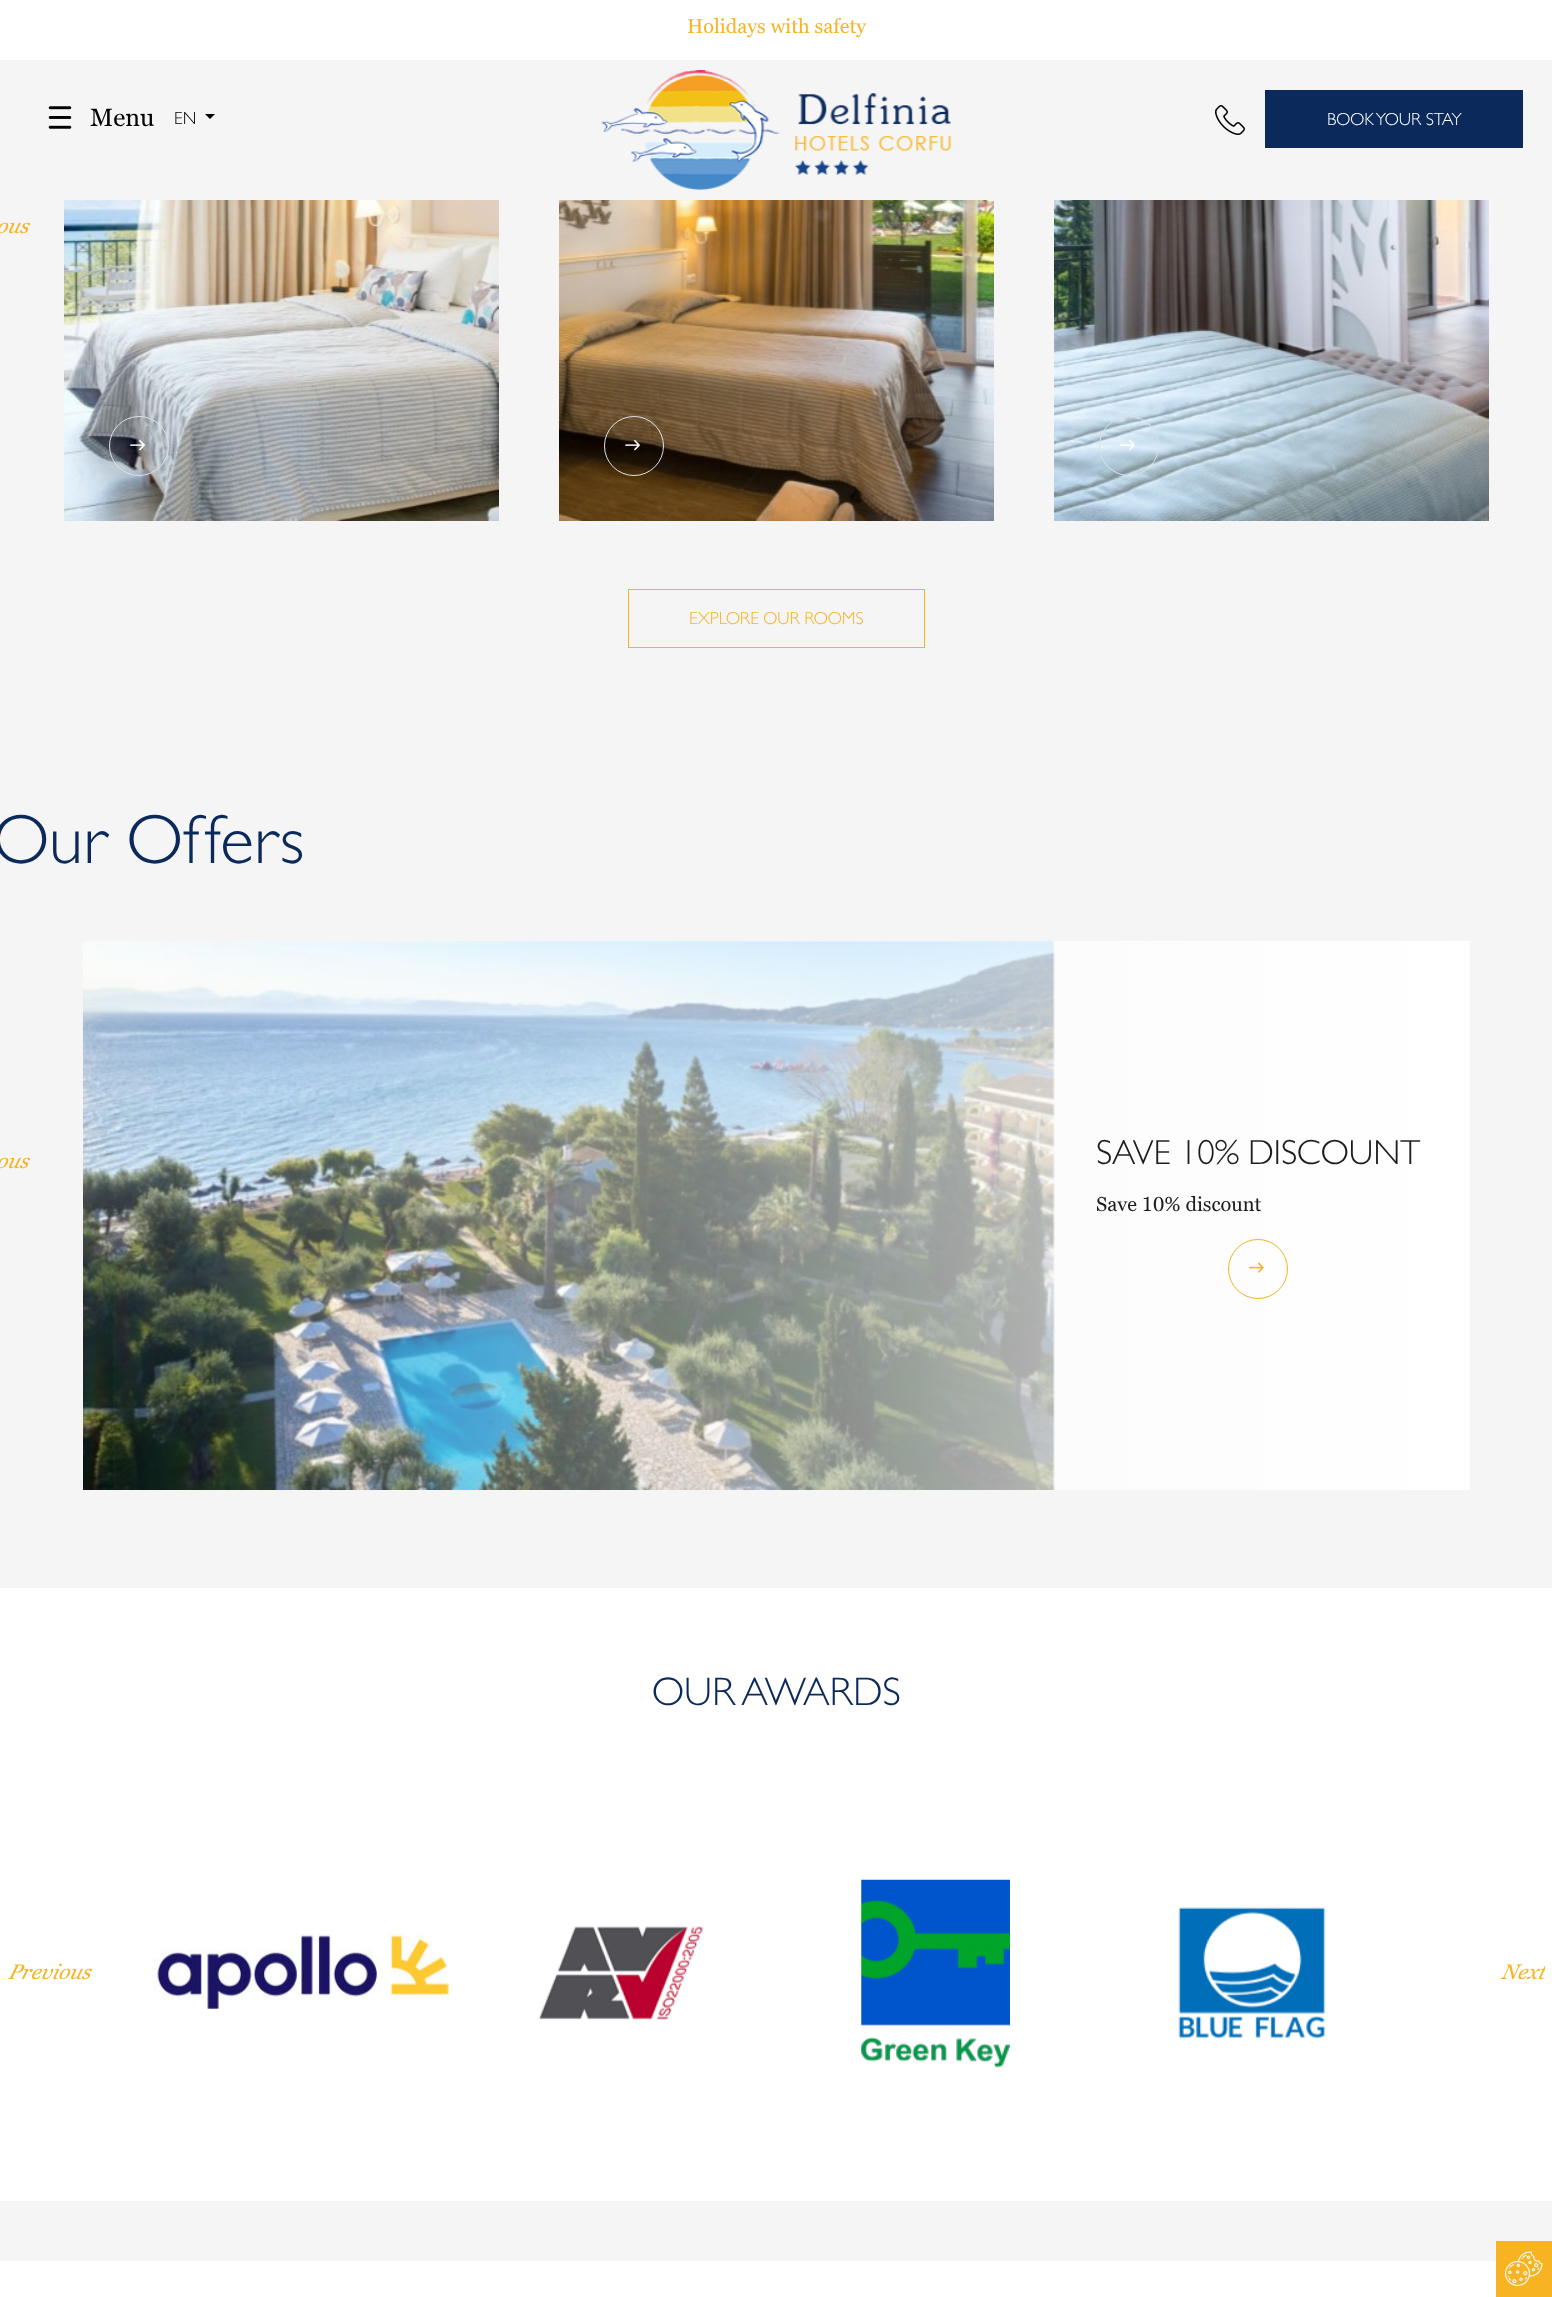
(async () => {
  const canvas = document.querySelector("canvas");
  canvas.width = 1552;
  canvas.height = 2297;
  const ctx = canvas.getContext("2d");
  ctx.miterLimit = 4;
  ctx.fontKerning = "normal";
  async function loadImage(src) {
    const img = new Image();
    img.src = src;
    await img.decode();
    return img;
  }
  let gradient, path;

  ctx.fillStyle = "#f5f5f5";
  ctx.fillRect(0, 0, 1552, 2297);
  ctx.fillStyle = "#ffffff";
  ctx.fillRect(0, 0, 1552, 60);
  ctx.drawImage(await loadImage("img/1.png"), 48, 106, 24, 23);
  ctx.fillStyle = "#000000";
  path = new Path2D("M205 114H215L210 119Z");
  ctx.fill(path);
  ctx.drawImage(await loadImage("img/2.png"), 601, 70, 351, 120);
  ctx.drawImage(await loadImage("img/3.png"), 1215, 105, 30, 30);
  ctx.fillStyle = "#0b2a5b";
  ctx.fillRect(1265, 90, 258, 58);
  ctx.drawImage(await loadImage("img/4.png"), 64, 200, 435, 321);
  ctx.beginPath();
  ctx.arc(139, 446, 29.5, 0, Math.PI * 2);
  ctx.strokeStyle = "#dee2e6";
  ctx.stroke();
  ctx.drawImage(await loadImage("img/5.png"), 130, 440, 15, 11);
  ctx.drawImage(await loadImage("img/6.png"), 559, 200, 435, 321);
  ctx.beginPath();
  ctx.arc(634, 446, 29.5, 0, Math.PI * 2);
  ctx.stroke();
  ctx.drawImage(await loadImage("img/7.png"), 625, 440, 15, 11);
  ctx.drawImage(await loadImage("img/8.png"), 1054, 200, 435, 321);
  ctx.beginPath();
  ctx.arc(1129, 446, 29.5, 0, Math.PI * 2);
  ctx.stroke();
  ctx.drawImage(await loadImage("img/9.png"), 1120, 440, 15, 11);
  ctx.strokeStyle = "#f7b322";
  ctx.strokeRect(628.5, 589.5, 296, 58);
  ctx.drawImage(await loadImage("img/10.png"), 83, 941, 972, 549);
  gradient = ctx.createLinearGradient(1470, 1216, 83, 1216);
  gradient.addColorStop(0, "#ffffff");
  gradient.addColorStop(1, "rgba(255, 255, 255, 0)");
  ctx.fillStyle = gradient;
  ctx.fillRect(113, 941, 1357, 549);
  ctx.beginPath();
  ctx.arc(1258, 1269, 29.5, 0, Math.PI * 2);
  ctx.stroke();
  ctx.drawImage(await loadImage("img/11.png"), 1249, 1262, 15, 11);
  ctx.fillStyle = "#ffffff";
  ctx.fillRect(0, 1588, 1552, 613);
  ctx.drawImage(await loadImage("img/12.png"), 153, 1933, 296, 76);
  ctx.drawImage(await loadImage("img/13.png"), 538, 1926, 165, 94);
  ctx.drawImage(await loadImage("img/14.png"), 861, 1879, 149, 189);
  ctx.drawImage(await loadImage("img/15.png"), 1178, 1906, 148, 133);
  ctx.fillRect(0, 2261, 1496, 36);
  ctx.fillStyle = "#f7b322";
  ctx.fillRect(1496, 2241, 56, 56);
  ctx.drawImage(await loadImage("img/16.png"), 1505, 2251, 38, 35);
  ctx.font = "20px Georgia";
  ctx.fillText("Holidays with safety", 687, 33);
  ctx.font = "25px Georgia";
  ctx.fillStyle = "#000000";
  ctx.fillText("Menu", 90, 126);
  ctx.font = "300 17.5px 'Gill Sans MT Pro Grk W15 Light'";
  ctx.fillText("EN", 174, 124);
  ctx.fillStyle = "#ffffff";
  ctx.fillText("BOOK YOUR STAY", 1327, 125);
  ctx.font = "italic 21px Georgia";
  ctx.fillStyle = "#f7b322";
  ctx.fillText("ous", -4, 233);
  ctx.font = "300 17.5px 'Gill Sans MT Pro Grk W15 Light'";
  ctx.fillText("EXPLORE OUR ROOMS", 689, 624);
  ctx.font = "300 70px 'Gill Sans MT Pro Grk W15 Light'";
  ctx.fillStyle = "#0b2a5b";
  ctx.fillText("Our Offers", -7, 863);
  ctx.font = "italic 21px Georgia";
  ctx.fillStyle = "#f7b322";
  ctx.fillText("ous", -4, 1168);
  ctx.font = "300 35px 'Gill Sans MT Pro Grk W15 Light'";
  ctx.fillStyle = "#1d1d1d";
  ctx.fillText("SAVE 10% DISCOUNT", 1096, 1164);
  ctx.font = "20px Georgia";
  ctx.fillText("Save 10% discount", 1096, 1211);
  ctx.font = "300 40px 'Gill Sans MT Pro Grk W15 Light'";
  ctx.fillStyle = "#0b2a5b";
  ctx.fillText("OUR AWARDS", 652, 1705);
  ctx.font = "italic 21px Georgia";
  ctx.fillStyle = "#f7b322";
  ctx.fillText("Previous", 8, 1979);
  ctx.save();
  ctx.beginPath();
  ctx.rect(1388, 1945, 157, 58);
  ctx.clip();
  ctx.fillText("Next", 1501, 1979);
  ctx.restore();
})();
